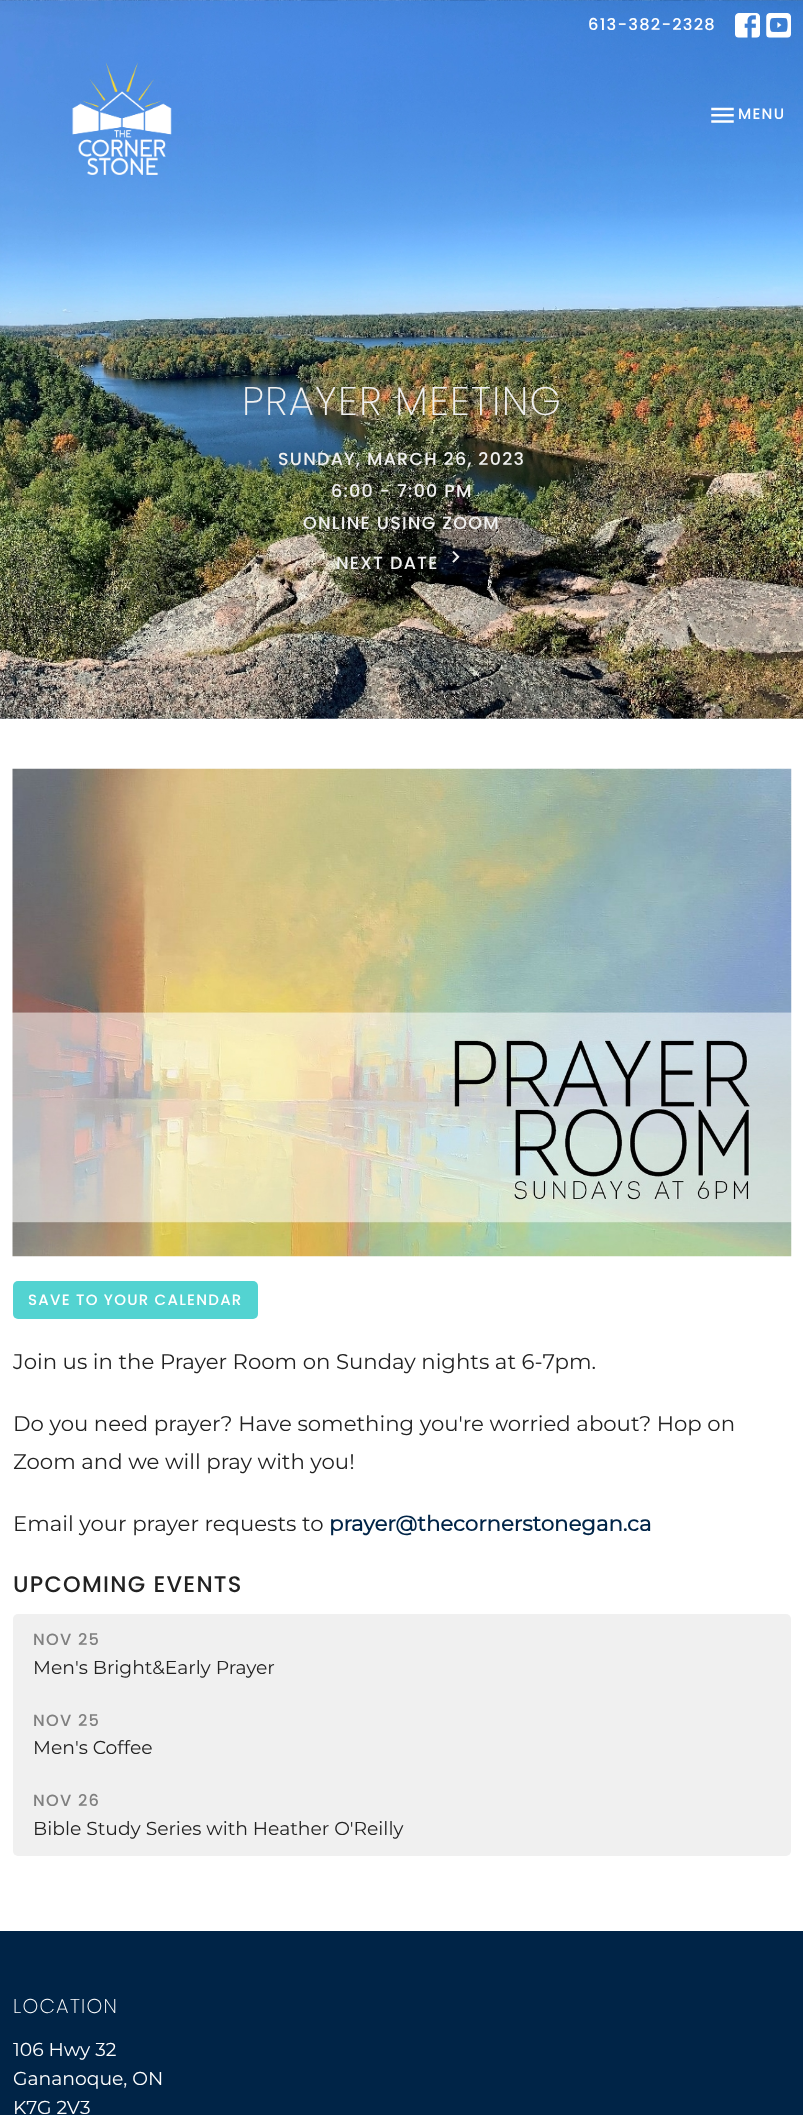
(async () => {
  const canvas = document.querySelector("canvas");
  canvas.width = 803;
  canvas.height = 2115;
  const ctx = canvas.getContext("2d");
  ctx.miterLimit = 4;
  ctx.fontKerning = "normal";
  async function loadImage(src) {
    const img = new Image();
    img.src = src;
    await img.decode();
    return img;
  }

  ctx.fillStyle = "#ffffff";
  ctx.fillRect(0, 0, 803, 2115);
  ctx.drawImage(await loadImage("img/5.png"), 0, 0, 803, 719);
  ctx.drawImage(await loadImage("img/1.png"), 735, 13, 25, 25);
  ctx.drawImage(await loadImage("img/2.png"), 766, 13, 25, 25);
  ctx.drawImage(await loadImage("img/3.png"), 72, 62, 100, 113);
  ctx.drawImage(await loadImage("img/4.png"), 711, 107, 23, 16);
  ctx.drawImage(await loadImage("img/6.png"), 452, 551, 8, 12);
  ctx.drawImage(await loadImage("img/7.png"), 12, 768, 780, 489);
  ctx.fillStyle = "#53d3d1";
  ctx.beginPath();
  ctx.roundRect(13, 1281, 245, 38, 5);
  ctx.fill();
  ctx.fillStyle = "#f0f0f0";
  ctx.beginPath();
  ctx.roundRect(13, 1614, 778, 81, [5, 5, 0, 0]);
  ctx.fill();
  ctx.fillRect(13, 1695, 778, 80);
  ctx.beginPath();
  ctx.roundRect(13, 1775, 778, 81, [0, 0, 5, 5]);
  ctx.fill();
  ctx.fillStyle = "#002447";
  ctx.fillRect(0, 1931, 803, 184);
  ctx.letterSpacing = "1.25px";
  ctx.font = "500 16.25px Poppins";
  ctx.fillStyle = "#ffffff";
  ctx.fillText("613-382-2328", 588, 30);
  ctx.font = "500 15px Poppins";
  ctx.fillText("MENU", 738, 119);
  ctx.font = "200 40px Poppins";
  ctx.fillStyle = "#f1f1f1";
  ctx.fillText("PRAYER MEETING", 242, 415);
  ctx.font = "500 17.5px Poppins";
  for (const [text, x, y] of [
    ["SUNDAY, MARCH 26, 2023", 278, 465],
    ["6:00 - 7:00 PM", 331, 497],
    ["ONLINE USING ZOOM", 303, 529],
    ["NEXT DATE", 336, 569],
  ]) {
    ctx.fillText(text, x, y);
  }
  ctx.font = "500 15px Poppins";
  ctx.fillStyle = "#ffffff";
  ctx.fillText("SAVE TO YOUR CALENDAR", 28, 1305);
  ctx.letterSpacing = "0px";
  ctx.font = "21.25px Montserrat";
  ctx.fillStyle = "#222222";
  for (const [text, x, y] of [
    ["Join us in the Prayer Room on Sunday nights at 6-7pm.", 13, 1369],
    ["Do you need prayer? Have something you're worried about? Hop on", 13, 1431],
    ["Zoom and we will pray with you!", 13, 1469],
    ["Email your prayer requests to", 13, 1531],
  ]) {
    ctx.fillText(text, x, y);
  }
  ctx.font = "bold 21.25px Montserrat";
  ctx.fillStyle = "#002447";
  ctx.fillText("prayer@thecornerstonegan.ca", 329, 1531);
  ctx.letterSpacing = "1.25px";
  ctx.font = "500 22.5px Poppins";
  ctx.fillStyle = "#222222";
  ctx.fillText("UPCOMING EVENTS", 13, 1592);
  ctx.font = "500 16.25px Poppins";
  ctx.fillStyle = "#808080";
  ctx.fillText("NOV 25", 33, 1645);
  ctx.letterSpacing = "0px";
  ctx.font = "18.75px Montserrat";
  ctx.fillStyle = "#222222";
  ctx.fillText("Men's Bright&Early Prayer", 33, 1674);
  ctx.letterSpacing = "1.25px";
  ctx.font = "500 16.25px Poppins";
  ctx.fillStyle = "#808080";
  ctx.fillText("NOV 25", 33, 1726);
  ctx.letterSpacing = "0px";
  ctx.font = "18.75px Montserrat";
  ctx.fillStyle = "#222222";
  ctx.fillText("Men's Coffee", 33, 1754);
  ctx.letterSpacing = "1.25px";
  ctx.font = "500 16.25px Poppins";
  ctx.fillStyle = "#808080";
  ctx.fillText("NOV 26", 33, 1806);
  ctx.letterSpacing = "0px";
  ctx.font = "18.75px Montserrat";
  ctx.fillStyle = "#222222";
  ctx.fillText("Bible Study Series with Heather O'Reilly", 33, 1835);
  ctx.letterSpacing = "1.25px";
  ctx.font = "200 20px Poppins";
  ctx.fillStyle = "#ffffff";
  ctx.fillText("LOCATION", 13, 2013);
  ctx.letterSpacing = "0px";
  ctx.font = "18.75px Montserrat";
  for (const [text, x, y] of [
    ["106 Hwy 32", 13, 2056],
    ["Gananoque, ON", 13, 2085],
    ["K7G 2V3", 13, 2114],
  ]) {
    ctx.fillText(text, x, y);
  }
})();
